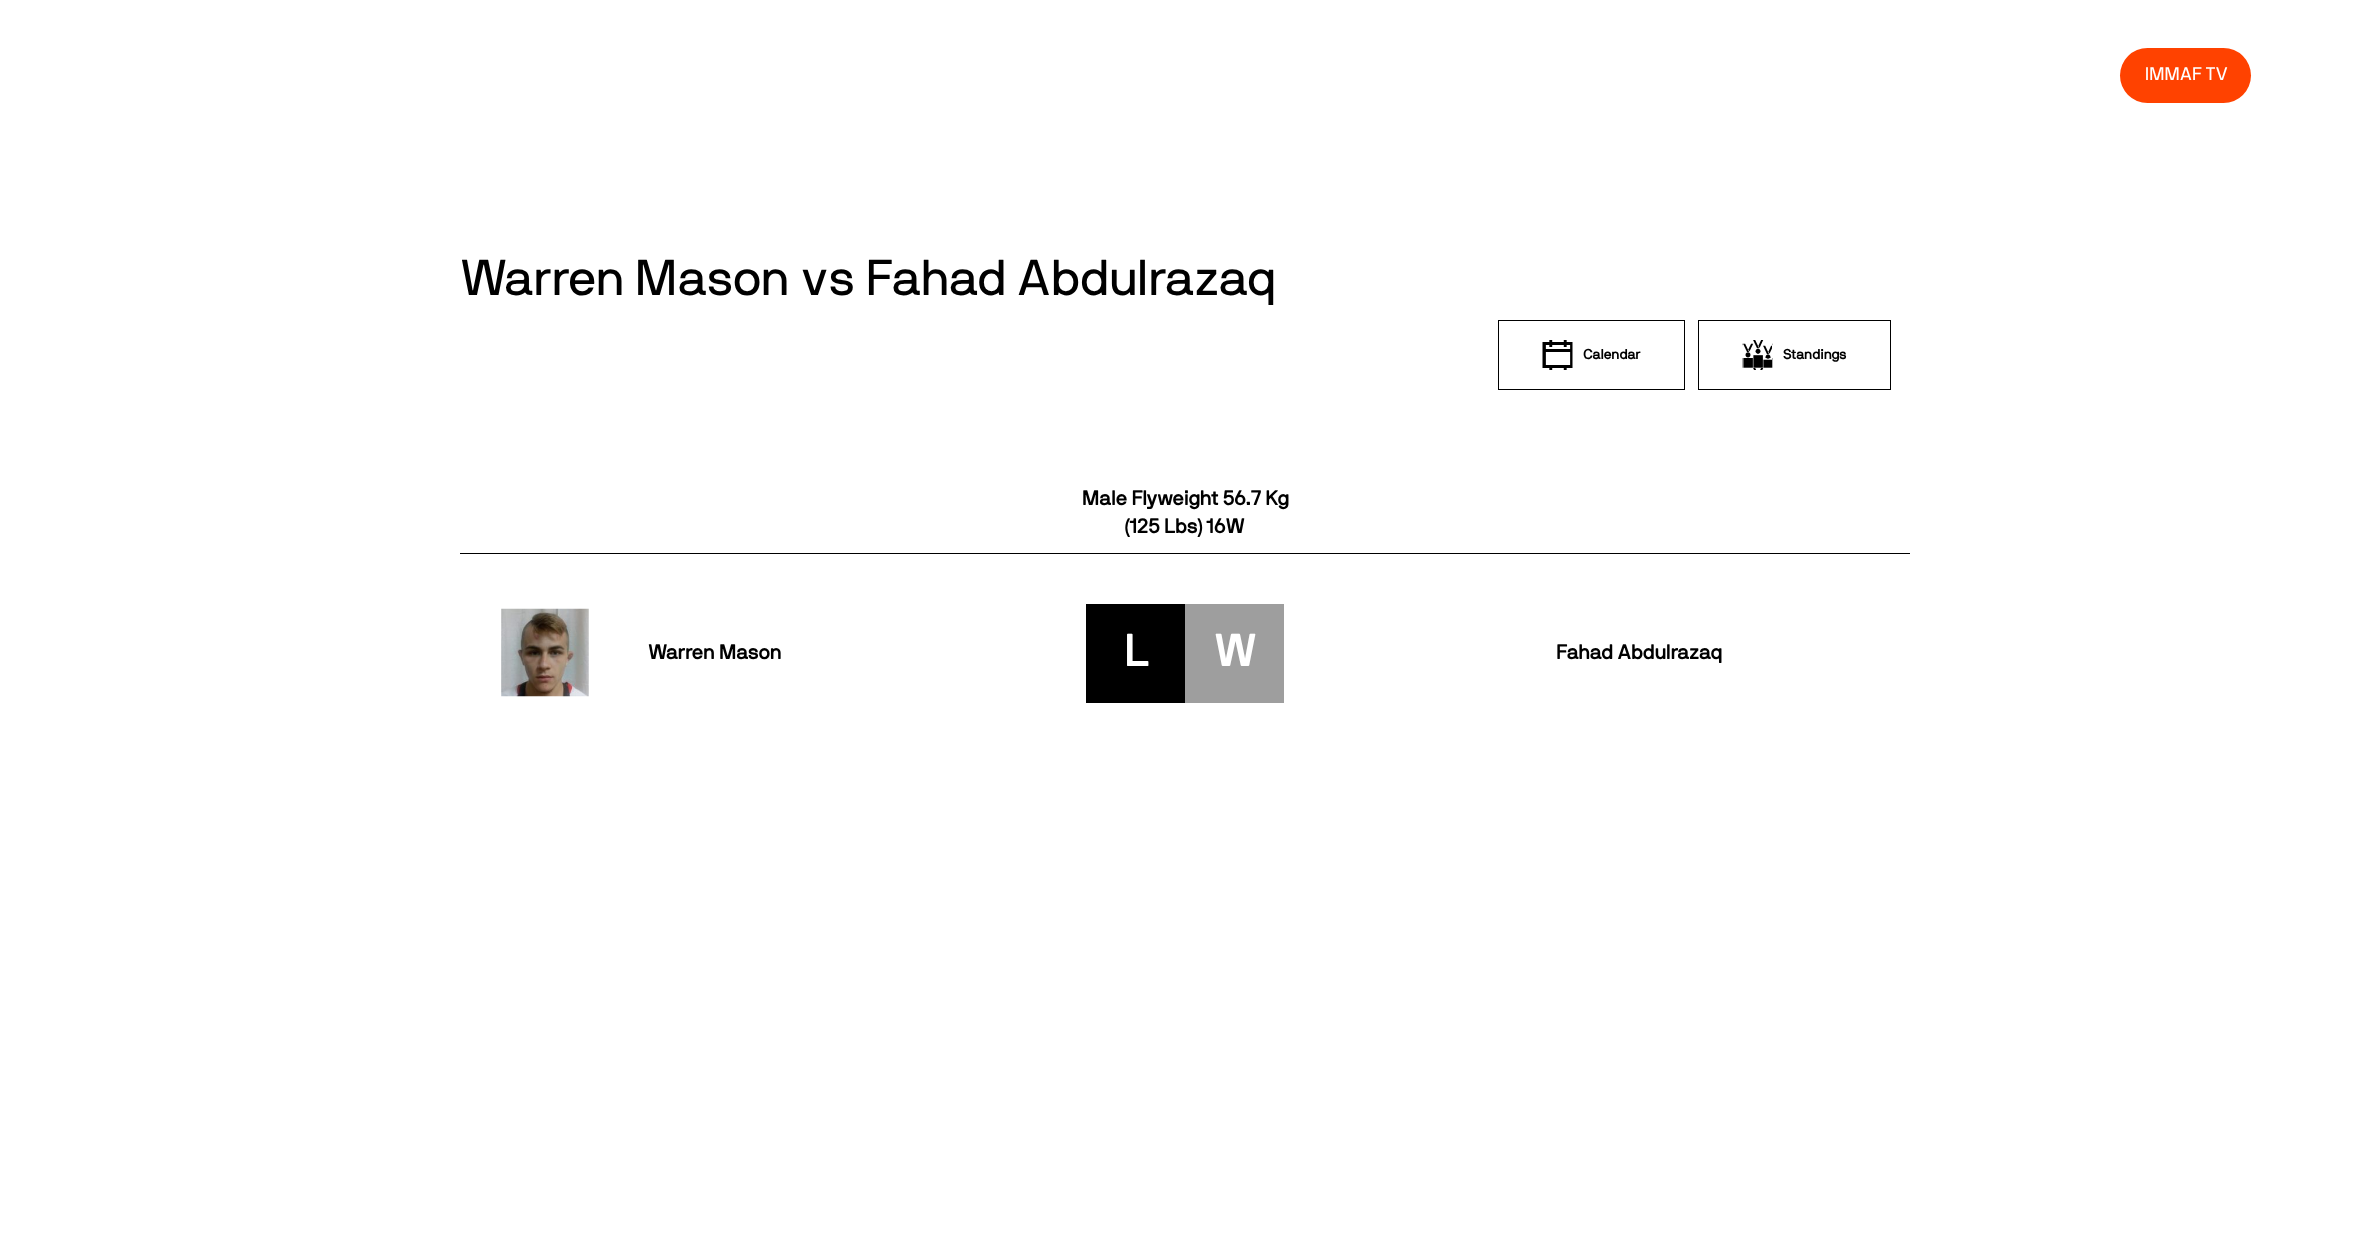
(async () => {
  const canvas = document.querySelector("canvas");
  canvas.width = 2370;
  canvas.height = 1244;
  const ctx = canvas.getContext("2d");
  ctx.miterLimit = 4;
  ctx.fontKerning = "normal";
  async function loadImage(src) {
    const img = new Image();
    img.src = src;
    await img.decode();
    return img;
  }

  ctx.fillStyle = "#ffffff";
  ctx.fillRect(0, 0, 2370, 1244);
  ctx.fillStyle = "#ff4200";
  ctx.beginPath();
  ctx.roundRect(2120, 48, 131, 55, 27.5);
  ctx.fill();
  ctx.strokeStyle = "#000000";
  ctx.strokeRect(1498.5, 320.5, 186, 69);
  ctx.drawImage(await loadImage("img/1.png"), 1542, 340, 31, 30);
  ctx.strokeRect(1698.5, 320.5, 192, 69);
  ctx.drawImage(await loadImage("img/2.png"), 1742, 340, 31, 30);
  ctx.fillStyle = "#000000";
  ctx.fillRect(460, 553, 1450, 1);
  ctx.drawImage(await loadImage("img/3.png"), 501, 608, 88, 89);
  ctx.fillRect(1086, 604, 99, 99);
  ctx.fillStyle = "#9e9e9e";
  ctx.fillRect(1185, 604, 99, 99);
  ctx.font = "18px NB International";
  ctx.fillStyle = "#ffffff";
  ctx.fillText("IMMAF TV", 2145, 80);
  ctx.letterSpacing = "-0.3px";
  ctx.font = "50px NB International";
  ctx.fillStyle = "#000000";
  ctx.fillText("Warren Mason vs Fahad Abdulrazaq", 460, 295);
  ctx.letterSpacing = "0px";
  ctx.font = "bold 13.75px NB International";
  ctx.fillText("Calendar", 1583, 359);
  ctx.fillText("Standings", 1783, 359);
  ctx.font = "bold 20px NB International";
  for (const [text, x, y] of [
    ["Male Flyweight 56.7 Kg", 1082, 505],
    ["(125 Lbs) 16W", 1125, 533],
    ["Warren Mason", 648, 659],
  ]) {
    ctx.fillText(text, x, y);
  }
  ctx.font = "bold 44px NB International";
  ctx.fillStyle = "#ffffff";
  ctx.fillText("L", 1124, 666);
  ctx.fillText("W", 1214, 666);
  ctx.font = "bold 20px NB International";
  ctx.fillStyle = "#000000";
  ctx.fillText("Fahad Abdulrazaq", 1556, 659);
})();
